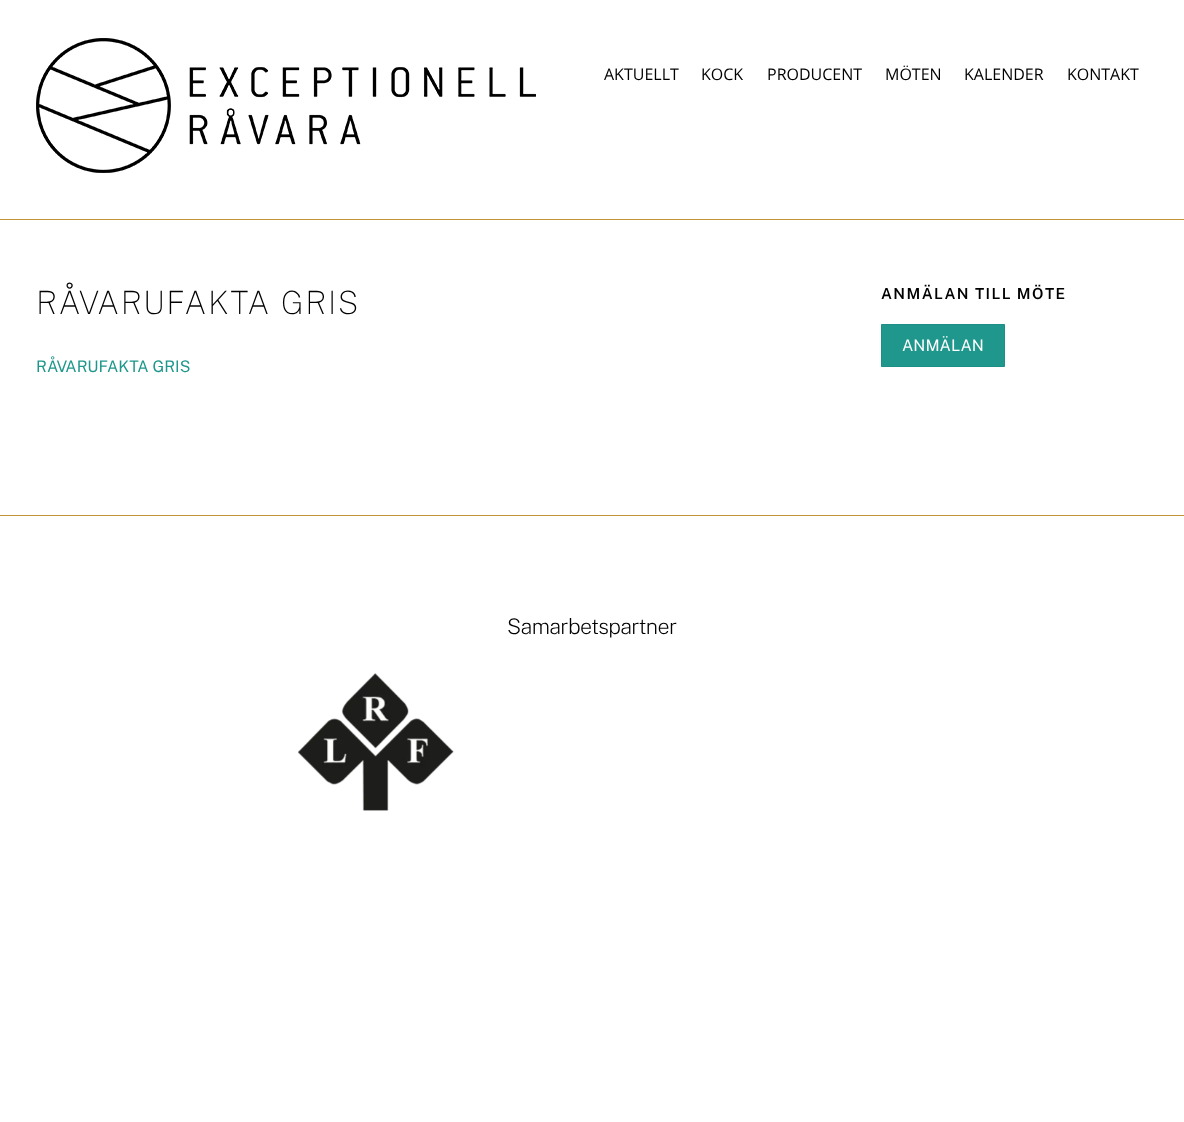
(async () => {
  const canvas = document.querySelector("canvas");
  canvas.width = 1184;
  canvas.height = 1122;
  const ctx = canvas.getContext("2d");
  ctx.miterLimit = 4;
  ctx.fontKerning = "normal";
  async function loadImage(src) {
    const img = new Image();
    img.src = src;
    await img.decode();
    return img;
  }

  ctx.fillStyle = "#ffffff";
  ctx.fillRect(0, 0, 1184, 1122);
  ctx.fillStyle = "#c19535";
  ctx.fillRect(0, 219, 1184, 1);
  ctx.drawImage(await loadImage("img/1.png"), 36, 38, 500, 135);
  ctx.fillStyle = "#1f978c";
  ctx.beginPath();
  ctx.rect(881.5, 324.5, 123, 42);
  ctx.fill();
  ctx.strokeStyle = "#1d8f85";
  ctx.stroke();
  ctx.fillStyle = "#c19535";
  ctx.fillRect(0, 515, 1184, 1);
  ctx.drawImage(await loadImage("img/2.png"), 298, 673, 156, 138);
  ctx.font = "16px Open Sans";
  ctx.fillStyle = "#000000";
  for (const [text, x, y] of [
    ["AKTUELLT", 604, 80],
    ["KOCK", 701, 80],
    ["PRODUCENT", 767, 80],
    ["MÖTEN", 885, 80],
    ["KALENDER", 964, 80],
    ["KONTAKT", 1067, 80],
  ]) {
    ctx.fillText(text, x, y);
  }
  ctx.letterSpacing = "1.6px";
  ctx.font = "100 32px Public Sans";
  ctx.fillText("RÅVARUFAKTA GRIS", 36, 314);
  ctx.letterSpacing = "0px";
  ctx.font = "16px Public Sans";
  ctx.fillStyle = "#1f978c";
  ctx.fillText("RÅVARUFAKTA GRIS", 36, 372);
  ctx.letterSpacing = "1.4px";
  ctx.font = "600 15.25px Public Sans";
  ctx.fillStyle = "#000000";
  ctx.fillText("ANMÄLAN TILL MÖTE", 881, 299);
  ctx.letterSpacing = "0px";
  ctx.font = "16px Public Sans";
  ctx.fillStyle = "#ffffff";
  ctx.fillText("ANMÄLAN", 902, 351);
  ctx.letterSpacing = "-0.6px";
  ctx.font = "200 21.5px Public Sans";
  ctx.fillStyle = "#000000";
  ctx.fillText("Samarbetspartner", 507, 634);
})();
